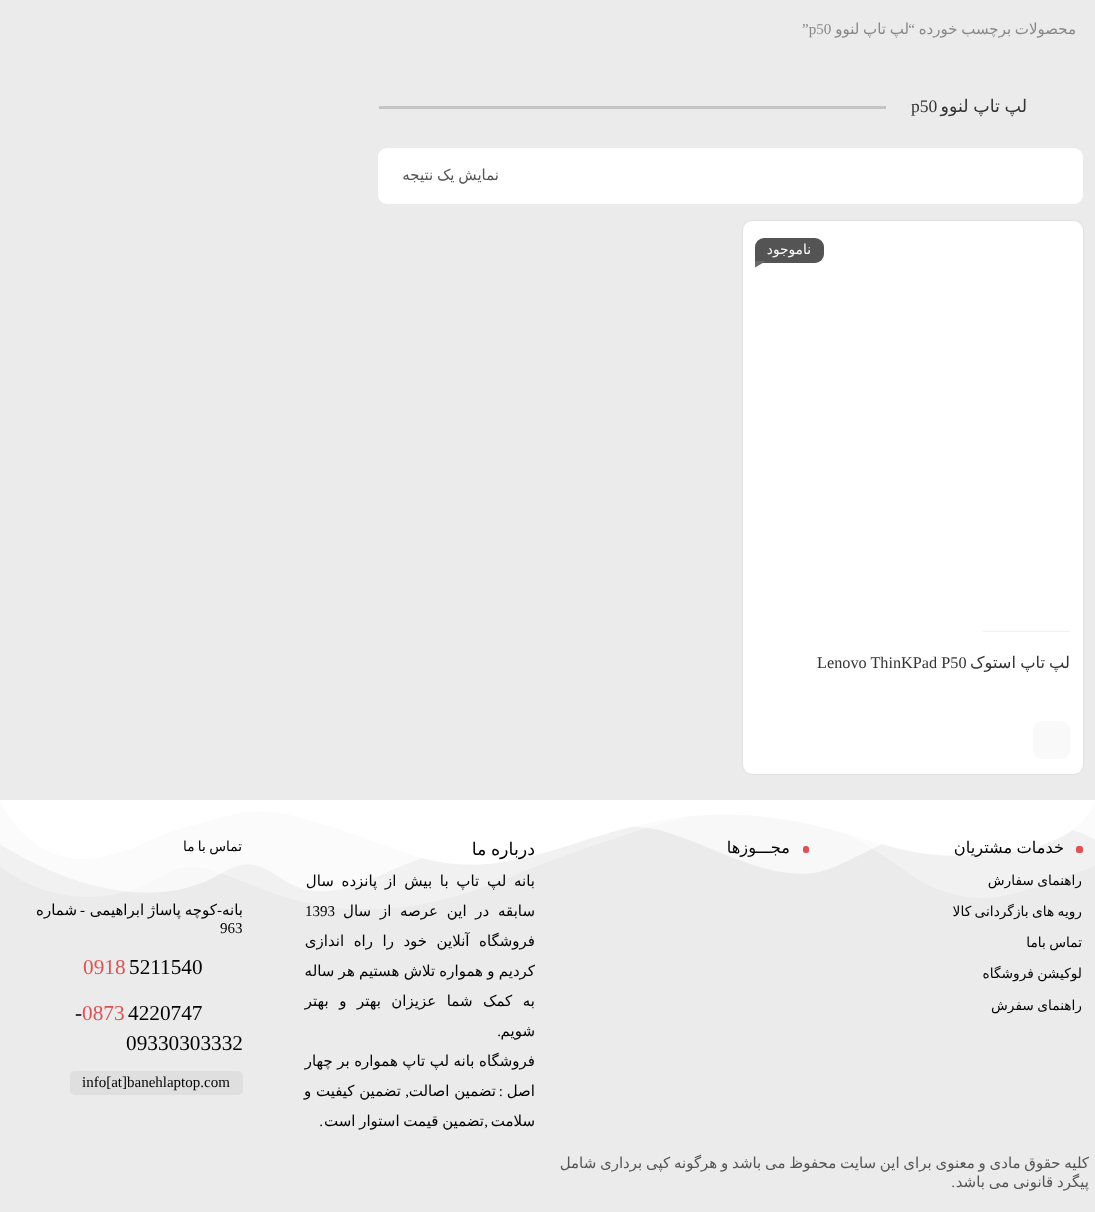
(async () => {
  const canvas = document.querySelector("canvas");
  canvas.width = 1095;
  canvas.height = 1212;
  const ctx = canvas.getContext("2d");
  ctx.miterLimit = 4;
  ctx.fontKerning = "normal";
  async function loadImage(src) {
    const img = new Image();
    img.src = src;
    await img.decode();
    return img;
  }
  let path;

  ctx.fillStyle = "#ebebeb";
  ctx.fillRect(0, 0, 1095, 1212);
  ctx.fillStyle = "#c5c5c5";
  ctx.fillRect(379, 106, 507, 3);
  ctx.fillStyle = "#ffffff";
  ctx.beginPath();
  ctx.roundRect(378, 148, 705, 56, 9);
  ctx.fill();
  ctx.fillStyle = "rgba(0, 0, 0, 0.1)";
  ctx.filter = "blur(1px)";
  ctx.beginPath();
  ctx.roundRect(743, 221, 340, 553, 9);
  ctx.fill();
  ctx.filter = "none";
  ctx.fillStyle = "#ffffff";
  ctx.beginPath();
  ctx.roundRect(743, 221, 340, 553, 9);
  ctx.fill();
  ctx.fillStyle = "#545454";
  ctx.beginPath();
  ctx.roundRect(755, 238, 69, 25, [9, 9, 9, 0]);
  ctx.fill();
  ctx.fillStyle = "#686868";
  path = new Path2D("M755 261H766L755 267.5Z");
  ctx.fill(path);
  ctx.fillStyle = "#f1f1f1";
  ctx.fillRect(983, 631, 87, 1);
  ctx.fillStyle = "#f9f9f9";
  ctx.beginPath();
  ctx.roundRect(1033, 721, 37, 38, 9);
  ctx.fill();
  ctx.drawImage(await loadImage("img/1.png"), 0, 800, 1095, 109);
  ctx.fillStyle = "#e15052";
  ctx.beginPath();
  ctx.roundRect(1076, 846, 7, 7, 2.5);
  ctx.fill();
  ctx.beginPath();
  ctx.roundRect(803, 846, 6, 7, 2.5);
  ctx.fill();
  ctx.fillStyle = "#dfdfdf";
  ctx.beginPath();
  ctx.roundRect(70, 1071, 173, 24, 5);
  ctx.fill();
  ctx.wordSpacing = "-1px";
  ctx.direction = "rtl";
  ctx.font = "15px DejaVu Sans";
  ctx.fillStyle = "#888888";
  ctx.fillText("محصولات برچسب خورده", 1076, 34);
  ctx.fillText("لپ تاپ لنوو", 909, 34);
  ctx.wordSpacing = "0px";
  ctx.font = "15px Liberation Serif";
  ctx.fillText("“", 915, 34);
  ctx.direction = "ltr";
  ctx.fillText("”p50", 802, 34);
  ctx.wordSpacing = "-1px";
  ctx.direction = "rtl";
  ctx.font = "17.5px DejaVu Sans";
  ctx.fillStyle = "#333333";
  ctx.fillText("لپ تاپ لنوو", 1027, 112);
  ctx.wordSpacing = "0px";
  ctx.direction = "ltr";
  ctx.font = "17.5px Liberation Serif";
  ctx.fillText("p50", 911, 112);
  ctx.wordSpacing = "-1px";
  ctx.direction = "rtl";
  ctx.font = "15px DejaVu Sans";
  ctx.fillStyle = "#555555";
  ctx.fillText("نمایش یک نتیجه", 499, 180);
  ctx.wordSpacing = "0px";
  ctx.font = "13.75px DejaVu Sans";
  ctx.fillStyle = "#ffffff";
  ctx.fillText("ناموجود", 811, 254);
  ctx.save();
  ctx.beginPath();
  ctx.rect(755, 650, 315, 53);
  ctx.clip();
  ctx.wordSpacing = "-1px";
  ctx.font = "16.25px DejaVu Sans";
  ctx.fillStyle = "#333333";
  ctx.fillText("لپ تاپ استوک", 1070, 668);
  ctx.restore();
  ctx.direction = "ltr";
  ctx.font = "16.25px Liberation Serif";
  ctx.fillStyle = "#333333";
  ctx.fillText("Lenovo ThinKPad P50", 817, 668);
  ctx.wordSpacing = "-1px";
  ctx.direction = "rtl";
  ctx.font = "16.25px DejaVu Sans";
  ctx.fillStyle = "#000000";
  ctx.fillText("خدمات مشتریان", 1064, 853);
  ctx.font = "13.75px DejaVu Sans";
  for (const [text, x, y] of [
    ["راهنمای سفارش", 1082, 885],
    ["رویه های بازگردانی کالا", 1082, 916],
    ["تماس باما", 1082, 947],
    ["لوکیشن فروشگاه", 1082, 978],
    ["راهنمای سفرش", 1082, 1010],
  ]) {
    ctx.fillText(text, x, y);
  }
  ctx.wordSpacing = "0px";
  ctx.font = "16.25px DejaVu Sans";
  ctx.fillText("مجـــوزها", 790, 853);
  ctx.wordSpacing = "-1px";
  ctx.font = "17.5px DejaVu Sans";
  ctx.fillText("درباره ما", 535, 855);
  ctx.wordSpacing = "3px";
  ctx.font = "15px DejaVu Sans";
  ctx.fillText("بانه لپ تاپ با بیش از پانزده سال", 535, 886);
  ctx.wordSpacing = "4px";
  ctx.fillText("سابقه در این عرصه از سال", 535, 916);
  ctx.wordSpacing = "0px";
  ctx.direction = "ltr";
  ctx.font = "15px Liberation Serif";
  ctx.fillText("1393", 305, 916);
  ctx.wordSpacing = "4.75px";
  ctx.direction = "rtl";
  ctx.font = "15px DejaVu Sans";
  ctx.fillText("فروشگاه آنلاین خود را راه اندازی", 535, 946);
  ctx.wordSpacing = "-0.5px";
  ctx.fillText("کردیم و همواره تلاش هستیم هر ساله", 535, 976);
  ctx.wordSpacing = "5.75px";
  ctx.fillText("به کمک شما عزیزان بهتر و بهتر", 535, 1006);
  ctx.wordSpacing = "0px";
  ctx.fillText("شویم", 535, 1036);
  ctx.font = "15px Liberation Serif";
  ctx.fillText(".", 501, 1036);
  ctx.wordSpacing = "-0.25px";
  ctx.font = "15px DejaVu Sans";
  ctx.fillText("فروشگاه بانه لپ تاپ همواره بر چهار", 535, 1066);
  ctx.wordSpacing = "0px";
  ctx.fillText("اصل", 535, 1096);
  ctx.font = "15px Liberation Serif";
  ctx.fillText(":", 503, 1096);
  ctx.font = "15px DejaVu Sans";
  ctx.fillText("تضمین اصالت", 496, 1096);
  ctx.font = "15px Liberation Serif";
  ctx.fillText(",", 409, 1096);
  ctx.font = "15px DejaVu Sans";
  ctx.fillText("تضمین کیفیت و", 401, 1096);
  ctx.fillText("سلامت", 535, 1126);
  ctx.wordSpacing = "-1px";
  ctx.fillText("تضمین قیمت استوار است", 484, 1126);
  ctx.wordSpacing = "0px";
  ctx.font = "15px Liberation Serif";
  ctx.fillText(".", 323, 1126);
  ctx.fillText(",", 488, 1126);
  ctx.wordSpacing = "-1px";
  ctx.font = "13.75px DejaVu Sans";
  ctx.fillText("تماس با ما", 242, 851);
  ctx.wordSpacing = "0px";
  ctx.font = "15px DejaVu Sans";
  ctx.fillText("بانه", 243, 915);
  ctx.wordSpacing = "-1px";
  ctx.fillText("کوچه پاساژ ابراهیمی", 217, 915);
  ctx.wordSpacing = "0px";
  ctx.font = "15px Liberation Serif";
  ctx.fillText("-", 222, 915);
  ctx.fillText("-", 85, 915);
  ctx.font = "15px DejaVu Sans";
  ctx.fillText("شماره", 77, 915);
  ctx.direction = "ltr";
  ctx.font = "15px Liberation Serif";
  ctx.fillText("963", 220, 933);
  ctx.font = "21.25px Liberation Serif";
  ctx.fillText("5211540", 129, 974);
  ctx.fillStyle = "#e15052";
  ctx.fillText("0918", 83, 974);
  ctx.fillStyle = "#000000";
  ctx.fillText("4220747", 128, 1020);
  ctx.fillStyle = "#e15052";
  ctx.fillText("0873", 82, 1020);
  ctx.fillStyle = "#000000";
  ctx.fillText("-", 75, 1020);
  ctx.fillText("09330303332", 126, 1050);
  ctx.font = "15px Liberation Serif";
  ctx.fillText("info[at]banehlaptop.com", 82, 1087);
  ctx.wordSpacing = "-1px";
  ctx.direction = "rtl";
  ctx.font = "15px DejaVu Sans";
  ctx.fillStyle = "#555555";
  ctx.fillText("کلیه حقوق مادی و معنوی برای این سایت محفوظ می باشد و هرگونه کپی برداری شامل", 1089, 1168);
  ctx.fillText("پیگرد قانونی می باشد", 1089, 1187);
  ctx.wordSpacing = "0px";
  ctx.font = "15px Liberation Serif";
  ctx.fillText(".", 955, 1187);
})();
